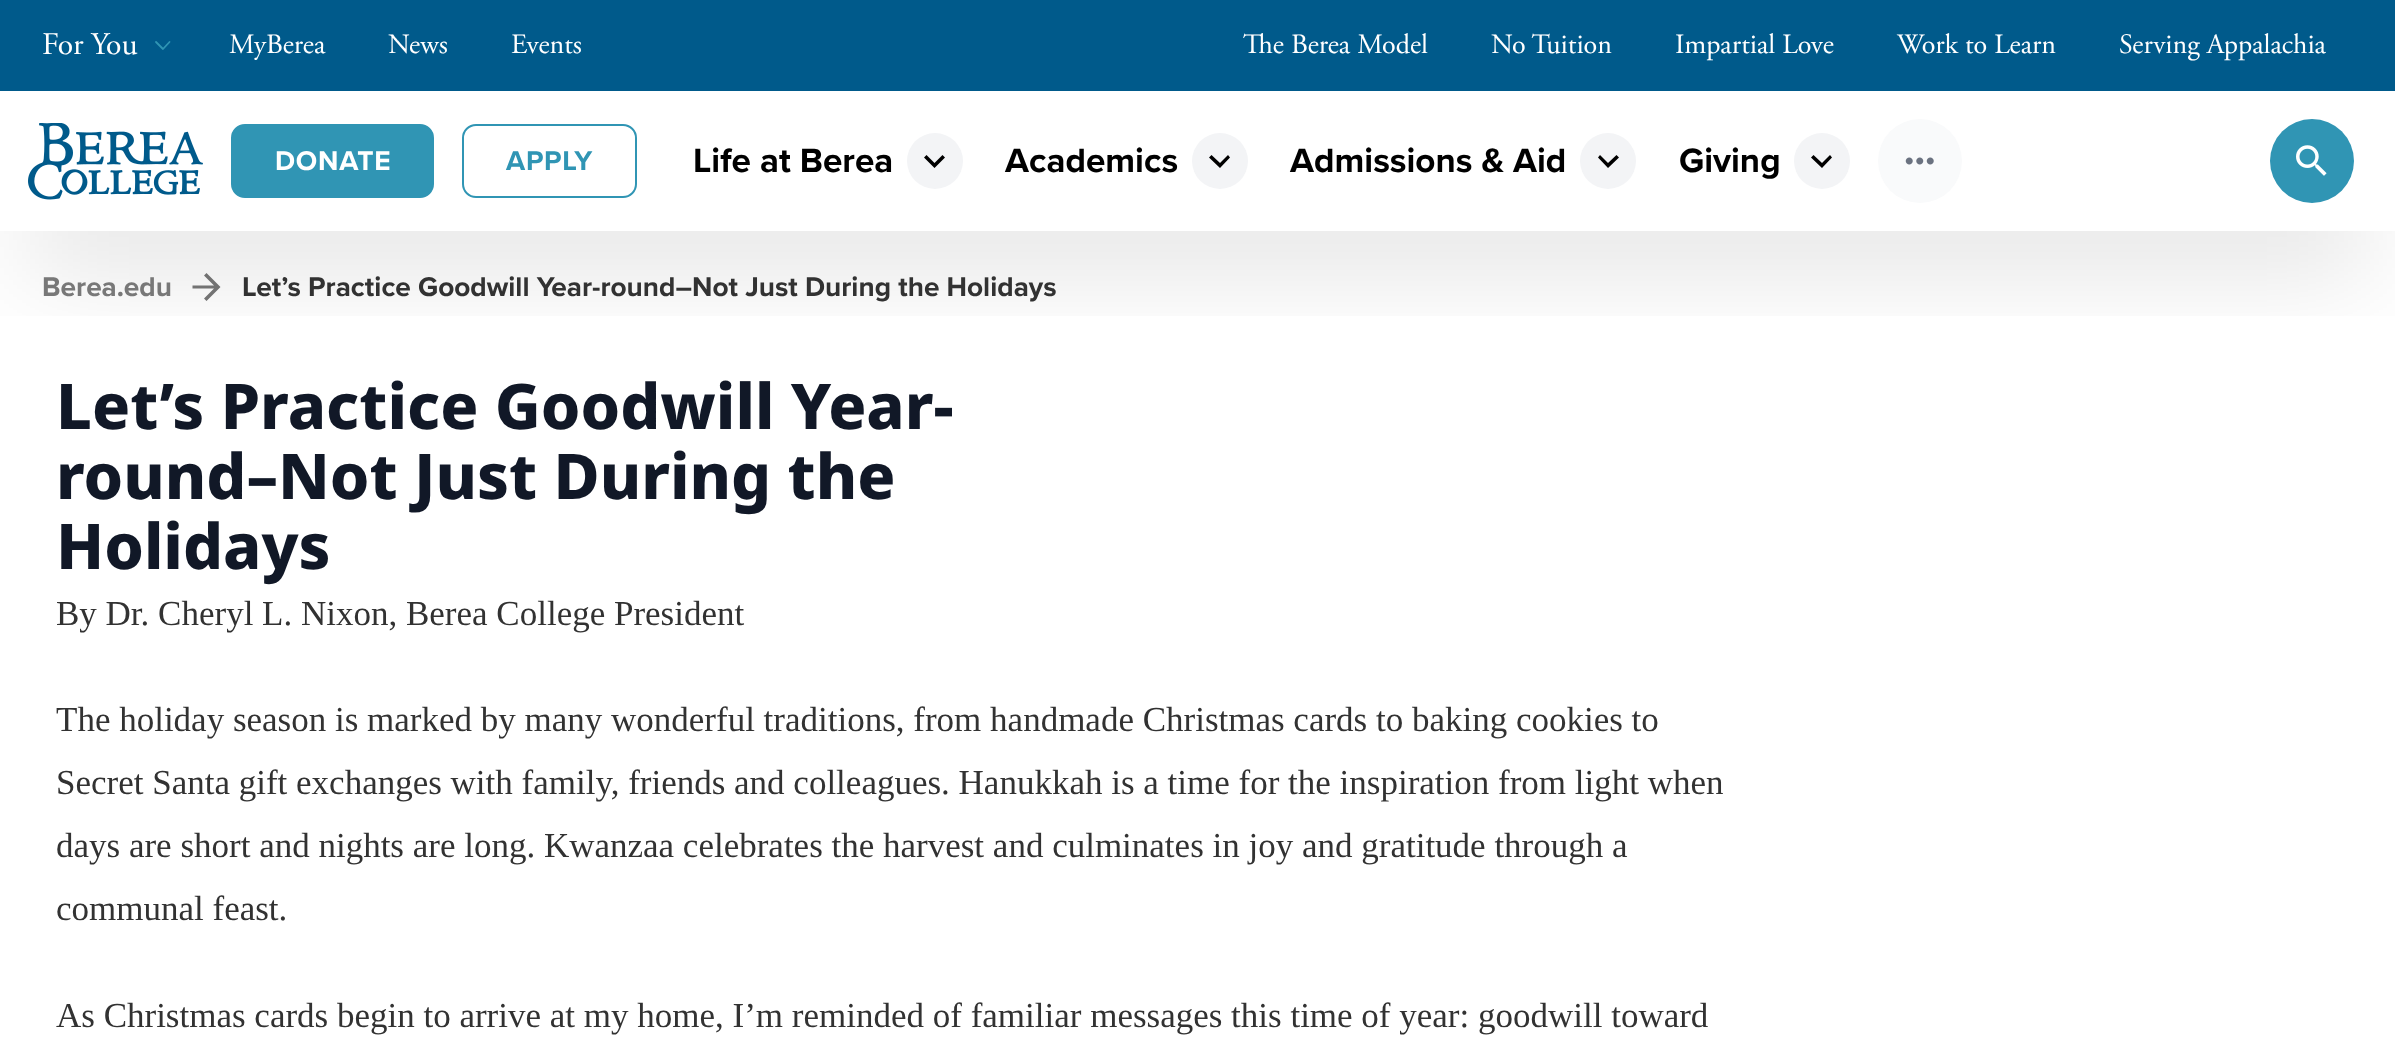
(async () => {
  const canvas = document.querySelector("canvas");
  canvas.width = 2395;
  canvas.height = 1049;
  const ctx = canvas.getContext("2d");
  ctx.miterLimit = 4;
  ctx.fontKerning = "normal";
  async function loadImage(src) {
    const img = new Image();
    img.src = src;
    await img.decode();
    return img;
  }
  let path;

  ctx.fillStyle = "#ffffff";
  ctx.fillRect(0, 0, 2395, 1049);
  ctx.fillStyle = "#005a8b";
  ctx.fillRect(0, 0, 2395, 91);
  ctx.fillStyle = "#787878";
  path = new Path2D("M206.5 273L220.5 287L206.5 301L204 298.5L214 288.5H192.5V285.5H214L204 275.5Z");
  ctx.fill(path);
  ctx.save();
  ctx.beginPath();
  ctx.rect(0, 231, 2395, 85);
  ctx.clip();
  ctx.fillStyle = "rgba(0, 0, 0, 0.12)";
  ctx.filter = "blur(52.5px)";
  ctx.beginPath();
  ctx.rect(26, 179, 2344, 87);
  ctx.fill();
  ctx.filter = "none";
  ctx.restore();
  path = new Path2D("M169.5 42L163 49L156 42");
  ctx.strokeStyle = "#3095b4";
  ctx.lineWidth = 1.8;
  ctx.lineCap = "round";
  ctx.lineJoin = "round";
  ctx.stroke(path);
  ctx.drawImage(await loadImage("img/1.png"), 28, 123, 175, 77);
  ctx.fillStyle = "#3095b4";
  ctx.beginPath();
  ctx.roundRect(232, 125, 201, 72, 13);
  ctx.fill();
  ctx.lineWidth = 2;
  ctx.lineJoin = "miter";
  ctx.stroke();
  ctx.beginPath();
  ctx.roundRect(463, 125, 173, 72, 13);
  ctx.stroke();
  ctx.fillStyle = "#f3f4f6";
  ctx.beginPath();
  ctx.arc(935, 161, 28, 0, Math.PI * 2);
  ctx.fill();
  ctx.fillStyle = "#000000";
  path = new Path2D("M942.5 155L945 157.5L934.5 168L924 157.5L926.5 155L934.5 163Z");
  ctx.fill(path);
  ctx.fillStyle = "#f3f4f6";
  ctx.beginPath();
  ctx.arc(1220, 161, 28, 0, Math.PI * 2);
  ctx.fill();
  ctx.fillStyle = "#000000";
  path = new Path2D("M1228 155L1230 157.5L1220 168L1209 157.5L1211.5 155L1220 163Z");
  ctx.fill(path);
  ctx.fillStyle = "#f3f4f6";
  ctx.beginPath();
  ctx.arc(1608, 161, 28, 0, Math.PI * 2);
  ctx.fill();
  ctx.fillStyle = "#000000";
  path = new Path2D("M1616.5 155L1619 157.5L1608 168L1598 157.5L1600 155L1608 163Z");
  ctx.fill(path);
  ctx.fillStyle = "#f3f4f6";
  ctx.beginPath();
  ctx.arc(1822, 161, 28, 0, Math.PI * 2);
  ctx.fill();
  ctx.fillStyle = "#000000";
  path = new Path2D("M1830 155L1832 157.5L1822 168L1811 157.5L1813.5 155L1822 163Z");
  ctx.fill(path);
  ctx.fillStyle = "#f9fafb";
  ctx.beginPath();
  ctx.arc(1920, 161, 42, 0, Math.PI * 2);
  ctx.fill();
  ctx.drawImage(await loadImage("img/2.png"), 1905, 157, 29, 8);
  ctx.fillStyle = "#3095b4";
  ctx.beginPath();
  ctx.arc(2312, 161, 42, 0, Math.PI * 2);
  ctx.fill();
  ctx.drawImage(await loadImage("img/3.png"), 2296, 145, 31, 31);
  ctx.font = "31.5px Adobe Garamond";
  ctx.fillStyle = "#ffffff";
  ctx.fillText("For You", 42, 54);
  ctx.font = "28px Adobe Garamond";
  for (const [text, x, y] of [
    ["MyBerea", 229, 53],
    ["News", 388, 53],
    ["Events", 511, 53],
    ["The Berea Model", 1243, 53],
    ["No Tuition", 1491, 53],
    ["Impartial Love", 1675, 53],
    ["Work to Learn", 1897, 53],
    ["Serving Appalachia", 2119, 53],
  ]) {
    ctx.fillText(text, x, y);
  }
  ctx.letterSpacing = "0.75px";
  ctx.font = "bold 28px Proxima Nova";
  ctx.fillText("DONATE", 275, 170);
  ctx.fillStyle = "#3095b4";
  ctx.fillText("APPLY", 506, 170);
  ctx.letterSpacing = "0px";
  ctx.font = "bold 35px Proxima Nova";
  ctx.fillStyle = "#000000";
  for (const [text, x, y] of [
    ["Life at Berea", 693, 172],
    ["Academics", 1005, 172],
    ["Admissions & Aid", 1290, 172],
    ["Giving", 1679, 172],
  ]) {
    ctx.fillText(text, x, y);
  }
  ctx.font = "bold 28px Proxima Nova";
  ctx.fillStyle = "#787878";
  ctx.fillText("Berea.edu", 42, 296);
  ctx.fillStyle = "#323232";
  ctx.fillText("Let’s Practice Goodwill Year-round–Not Just During the Holidays", 242, 296);
  ctx.font = "800 63px Noto Sans";
  ctx.fillStyle = "#111827";
  for (const [text, x, y] of [
    ["Let’s Practice Goodwill Year-", 56, 429],
    ["round–Not Just During the", 56, 499],
    ["Holidays", 56, 569],
  ]) {
    ctx.fillText(text, x, y);
  }
  ctx.font = "35px Liberation Serif";
  ctx.fillStyle = "#323232";
  for (const [text, x, y] of [
    ["By Dr. Cheryl L. Nixon, Berea College President", 56, 625],
    ["The holiday season is marked by many wonderful traditions, from handmade Christmas cards to baking cookies to", 56, 731],
    ["Secret Santa gift exchanges with family, friends and colleagues. Hanukkah is a time for the inspiration from light when", 56, 794],
    ["days are short and nights are long. Kwanzaa celebrates the harvest and culminates in joy and gratitude through a", 56, 857],
    ["communal feast.", 56, 920],
    ["As Christmas cards begin to arrive at my home, I’m reminded of familiar messages this time of year: goodwill toward", 56, 1027],
  ]) {
    ctx.fillText(text, x, y);
  }
})();
